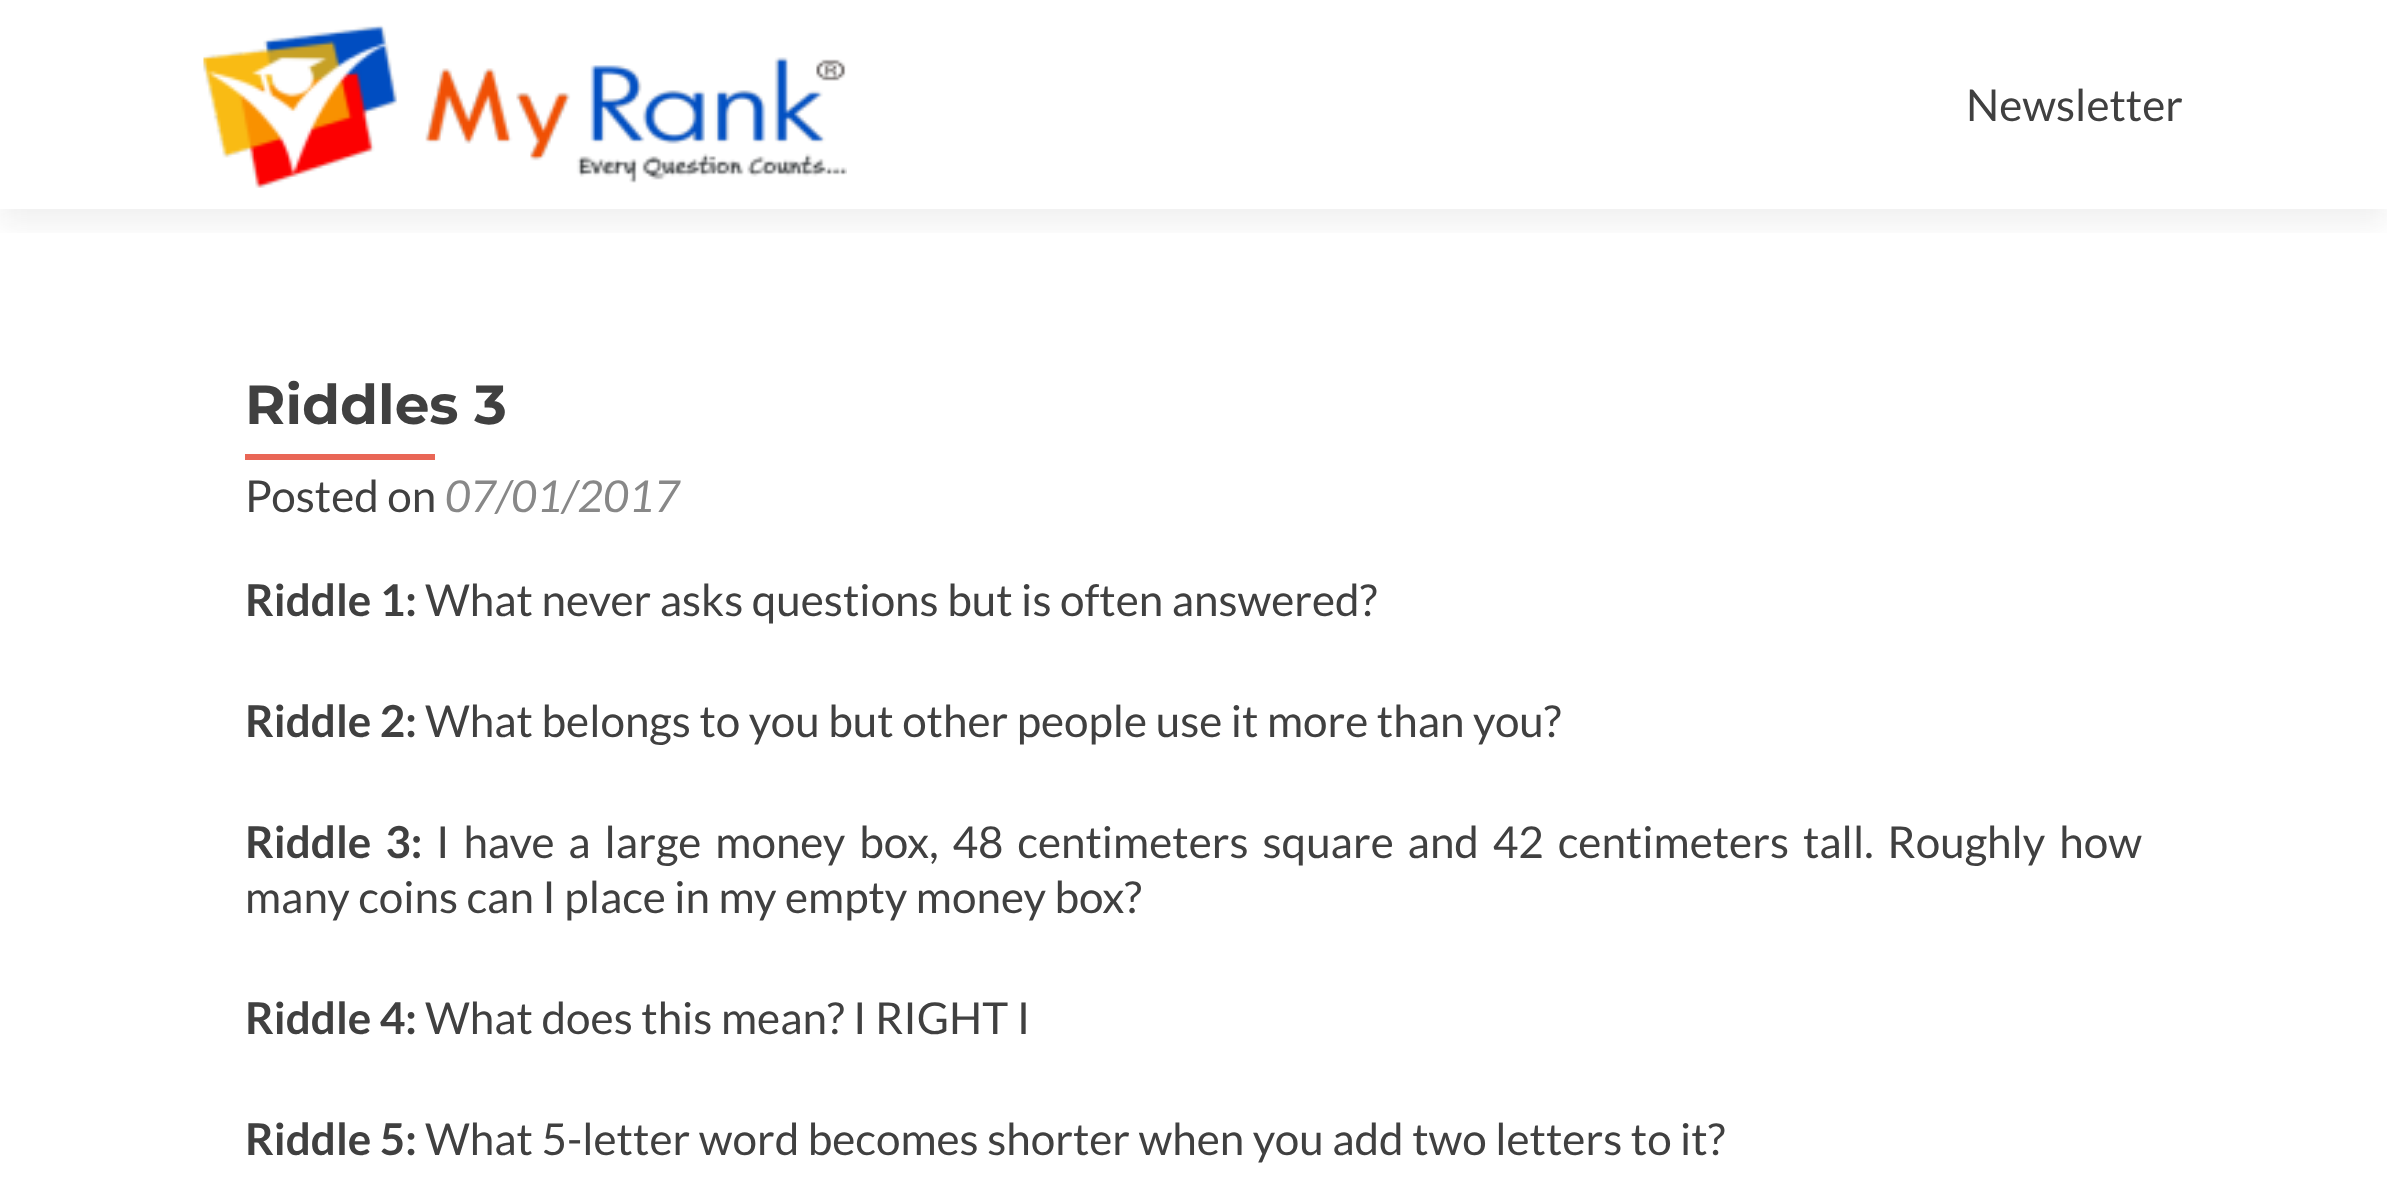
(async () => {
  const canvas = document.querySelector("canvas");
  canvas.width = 2387;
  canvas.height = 1188;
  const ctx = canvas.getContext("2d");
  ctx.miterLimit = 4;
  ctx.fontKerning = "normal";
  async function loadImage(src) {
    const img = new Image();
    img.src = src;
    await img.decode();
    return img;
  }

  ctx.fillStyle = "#ffffff";
  ctx.fillRect(0, 0, 2387, 1188);
  ctx.save();
  ctx.beginPath();
  ctx.rect(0, 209, 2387, 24);
  ctx.clip();
  ctx.fillStyle = "rgba(50, 50, 50, 0.08)";
  ctx.filter = "blur(15px)";
  ctx.beginPath();
  ctx.rect(0, 14, 2387, 209);
  ctx.fill();
  ctx.filter = "none";
  ctx.restore();
  ctx.drawImage(await loadImage("img/1.png"), 203, 25, 644, 163);
  ctx.fillStyle = "#e96656";
  ctx.fillRect(245, 454, 190, 6);
  ctx.font = "44px Lato";
  ctx.fillStyle = "#404040";
  ctx.fillText("Newsletter", 1966, 121);
  ctx.font = "bold 55px Montserrat";
  ctx.fillText("Riddles 3", 245, 424);
  ctx.font = "44px Lato";
  ctx.fillText("Posted on", 245, 512);
  ctx.font = "italic 44px Lato";
  ctx.fillStyle = "#888888";
  ctx.fillText("07/01/2017", 445, 512);
  ctx.font = "bold 44px Lato";
  ctx.fillStyle = "#404040";
  ctx.fillText("Riddle 1:", 245, 616);
  ctx.font = "44px Lato";
  ctx.fillText("What never asks questions but is often answered?", 425, 616);
  ctx.font = "bold 44px Lato";
  ctx.fillText("Riddle 2:", 245, 737);
  ctx.font = "44px Lato";
  ctx.fillText("What belongs to you but other people use it more than you?", 425, 737);
  ctx.wordSpacing = "5.4px";
  ctx.font = "bold 44px Lato";
  ctx.fillText("Riddle 3:", 245, 858);
  ctx.font = "44px Lato";
  ctx.fillText("I have a large money box, 48 centimeters square and 42 centimeters tall. Roughly how", 436, 858);
  ctx.wordSpacing = "0px";
  ctx.fillText("many coins can I place in my empty money box?", 245, 913);
  ctx.font = "bold 44px Lato";
  ctx.fillText("Riddle 4:", 245, 1034);
  ctx.font = "44px Lato";
  ctx.fillText("What does this mean? I RIGHT I", 425, 1034);
  ctx.font = "bold 44px Lato";
  ctx.fillText("Riddle 5:", 245, 1155);
  ctx.font = "44px Lato";
  ctx.fillText("What 5-letter word becomes shorter when you add two letters to it?", 425, 1155);
})();
